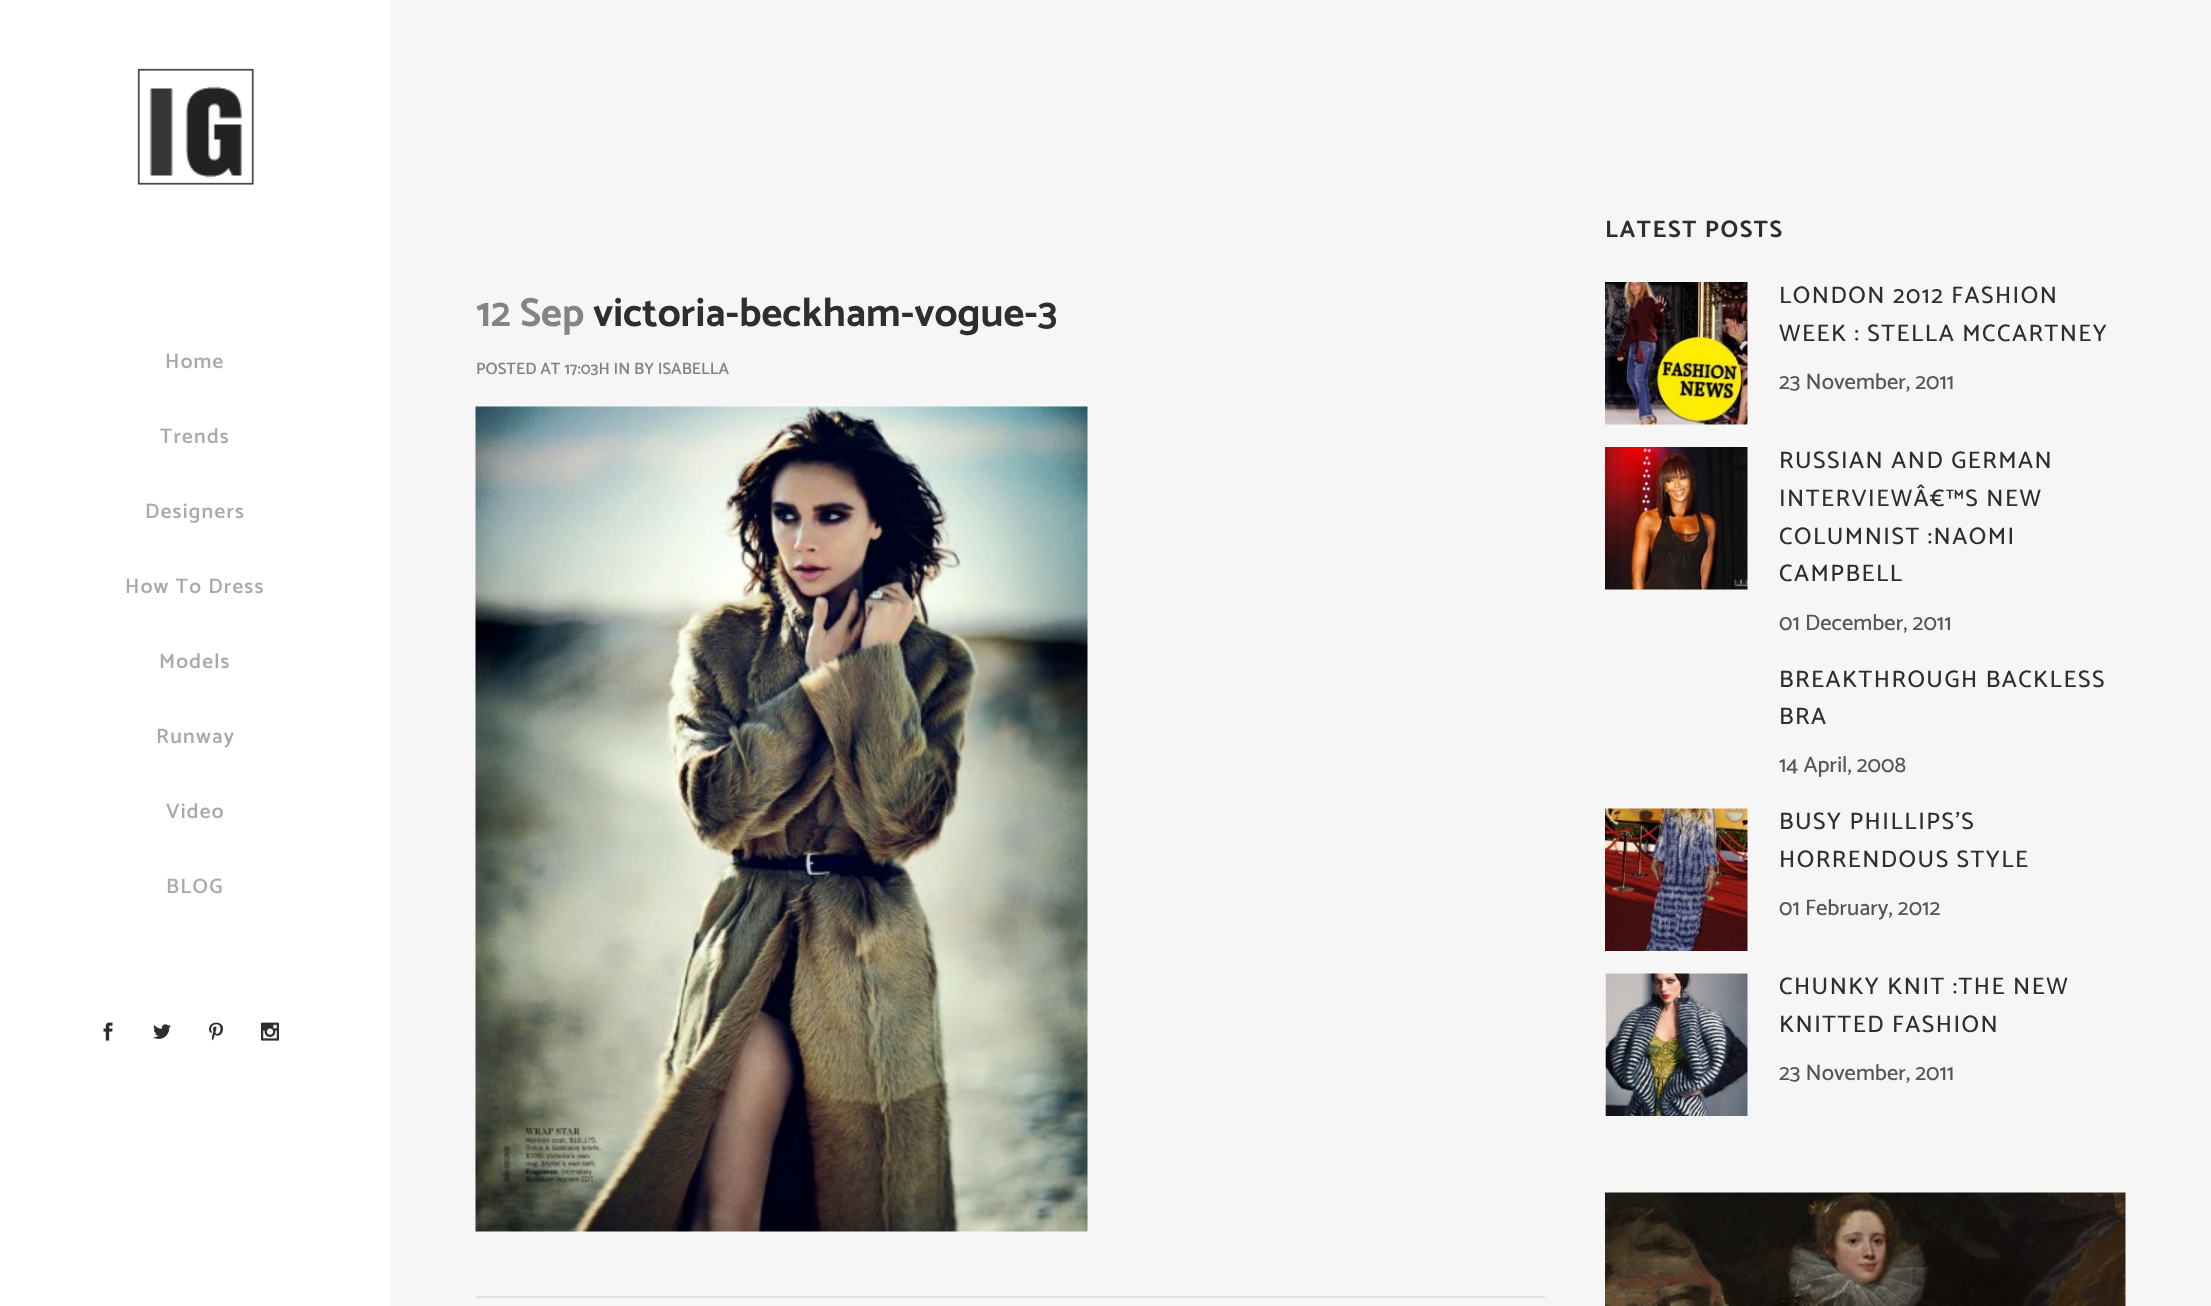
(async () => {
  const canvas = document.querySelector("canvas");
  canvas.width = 2211;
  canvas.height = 1306;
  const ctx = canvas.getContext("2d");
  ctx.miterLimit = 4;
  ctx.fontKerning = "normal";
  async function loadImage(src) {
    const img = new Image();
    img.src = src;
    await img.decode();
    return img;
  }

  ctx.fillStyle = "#f6f6f6";
  ctx.fillRect(0, 0, 2211, 1306);
  ctx.fillStyle = "#ffffff";
  ctx.fillRect(0, 0, 390, 1306);
  ctx.drawImage(await loadImage("img/1.png"), 137, 68, 117, 117);
  ctx.drawImage(await loadImage("img/2.png"), 103, 1022, 10, 19);
  ctx.drawImage(await loadImage("img/3.png"), 153, 1024, 18, 15);
  ctx.drawImage(await loadImage("img/4.png"), 209, 1022, 14, 19);
  ctx.drawImage(await loadImage("img/5.png"), 261, 1022, 18, 19);
  ctx.drawImage(await loadImage("img/6.png"), 475, 406, 613, 826);
  ctx.fillStyle = "#e0e0e0";
  ctx.fillRect(476, 1296, 1069, 2);
  ctx.drawImage(await loadImage("img/7.png"), 1605, 282, 143, 143);
  ctx.drawImage(await loadImage("img/8.png"), 1605, 447, 143, 143);
  ctx.drawImage(await loadImage("img/9.png"), 1605, 808, 143, 143);
  ctx.drawImage(await loadImage("img/10.png"), 1605, 973, 143, 143);
  ctx.drawImage(await loadImage("img/11.png"), 1605, 1192, 521, 114);
  ctx.letterSpacing = "1.25px";
  ctx.font = "600 21px Catamaran";
  ctx.fillStyle = "#aaaaaa";
  for (const [text, x, y] of [
    ["Home", 165, 368],
    ["Trends", 160, 443],
    ["Designers", 145, 518],
    ["How To Dress", 125, 593],
    ["Models", 159, 668],
    ["Runway", 156, 743],
    ["Video", 166, 818],
    ["BLOG", 166, 893],
  ]) {
    ctx.fillText(text, x, y);
  }
  ctx.letterSpacing = "0px";
  ctx.font = "bold 40.5px Catamaran";
  ctx.fillStyle = "#848484";
  ctx.fillText("12 Sep", 476, 326);
  ctx.fillStyle = "#2e2e2e";
  ctx.fillText("victoria-beckham-vogue-3", 593, 326);
  ctx.font = "600 16.5px Catamaran";
  ctx.fillStyle = "#848484";
  ctx.fillText("POSTED AT 17:03H IN BY ISABELLA", 476, 374);
  ctx.letterSpacing = "1.5px";
  ctx.font = "bold 24px Catamaran";
  ctx.fillStyle = "#2e2e2e";
  ctx.fillText("LATEST POSTS", 1605, 237);
  ctx.font = "500 24px Catamaran";
  ctx.fillText("LONDON 2012 FASHION", 1779, 303);
  ctx.fillText("WEEK : STELLA MCCARTNEY", 1779, 341);
  ctx.letterSpacing = "0px";
  ctx.font = "500 22.5px Catamaran";
  ctx.fillStyle = "#565656";
  ctx.fillText("23 November, 2011", 1779, 389);
  ctx.letterSpacing = "1.5px";
  ctx.font = "500 24px Catamaran";
  ctx.fillStyle = "#2e2e2e";
  for (const [text, x, y] of [
    ["RUSSIAN AND GERMAN", 1779, 468],
    ["INTERVIEWÂ€™S NEW", 1779, 506],
    ["COLUMNIST :NAOMI", 1779, 544],
    ["CAMPBELL", 1779, 581],
  ]) {
    ctx.fillText(text, x, y);
  }
  ctx.letterSpacing = "0px";
  ctx.font = "500 22.5px Catamaran";
  ctx.fillStyle = "#565656";
  ctx.fillText("01 December, 2011", 1779, 630);
  ctx.letterSpacing = "1.5px";
  ctx.font = "500 24px Catamaran";
  ctx.fillStyle = "#2e2e2e";
  ctx.fillText("BREAKTHROUGH BACKLESS", 1779, 687);
  ctx.fillText("BRA", 1779, 724);
  ctx.letterSpacing = "0px";
  ctx.font = "500 22.5px Catamaran";
  ctx.fillStyle = "#565656";
  ctx.fillText("14 April, 2008", 1779, 772);
  ctx.letterSpacing = "1.5px";
  ctx.font = "500 24px Catamaran";
  ctx.fillStyle = "#2e2e2e";
  ctx.fillText("BUSY PHILLIPS’S", 1779, 829);
  ctx.fillText("HORRENDOUS STYLE", 1779, 867);
  ctx.letterSpacing = "0px";
  ctx.font = "500 22.5px Catamaran";
  ctx.fillStyle = "#565656";
  ctx.fillText("01 February, 2012", 1779, 915);
  ctx.letterSpacing = "1.5px";
  ctx.font = "500 24px Catamaran";
  ctx.fillStyle = "#2e2e2e";
  ctx.fillText("CHUNKY KNIT :THE NEW", 1779, 994);
  ctx.fillText("KNITTED FASHION", 1779, 1032);
  ctx.letterSpacing = "0px";
  ctx.font = "500 22.5px Catamaran";
  ctx.fillStyle = "#565656";
  ctx.fillText("23 November, 2011", 1779, 1080);
})();
